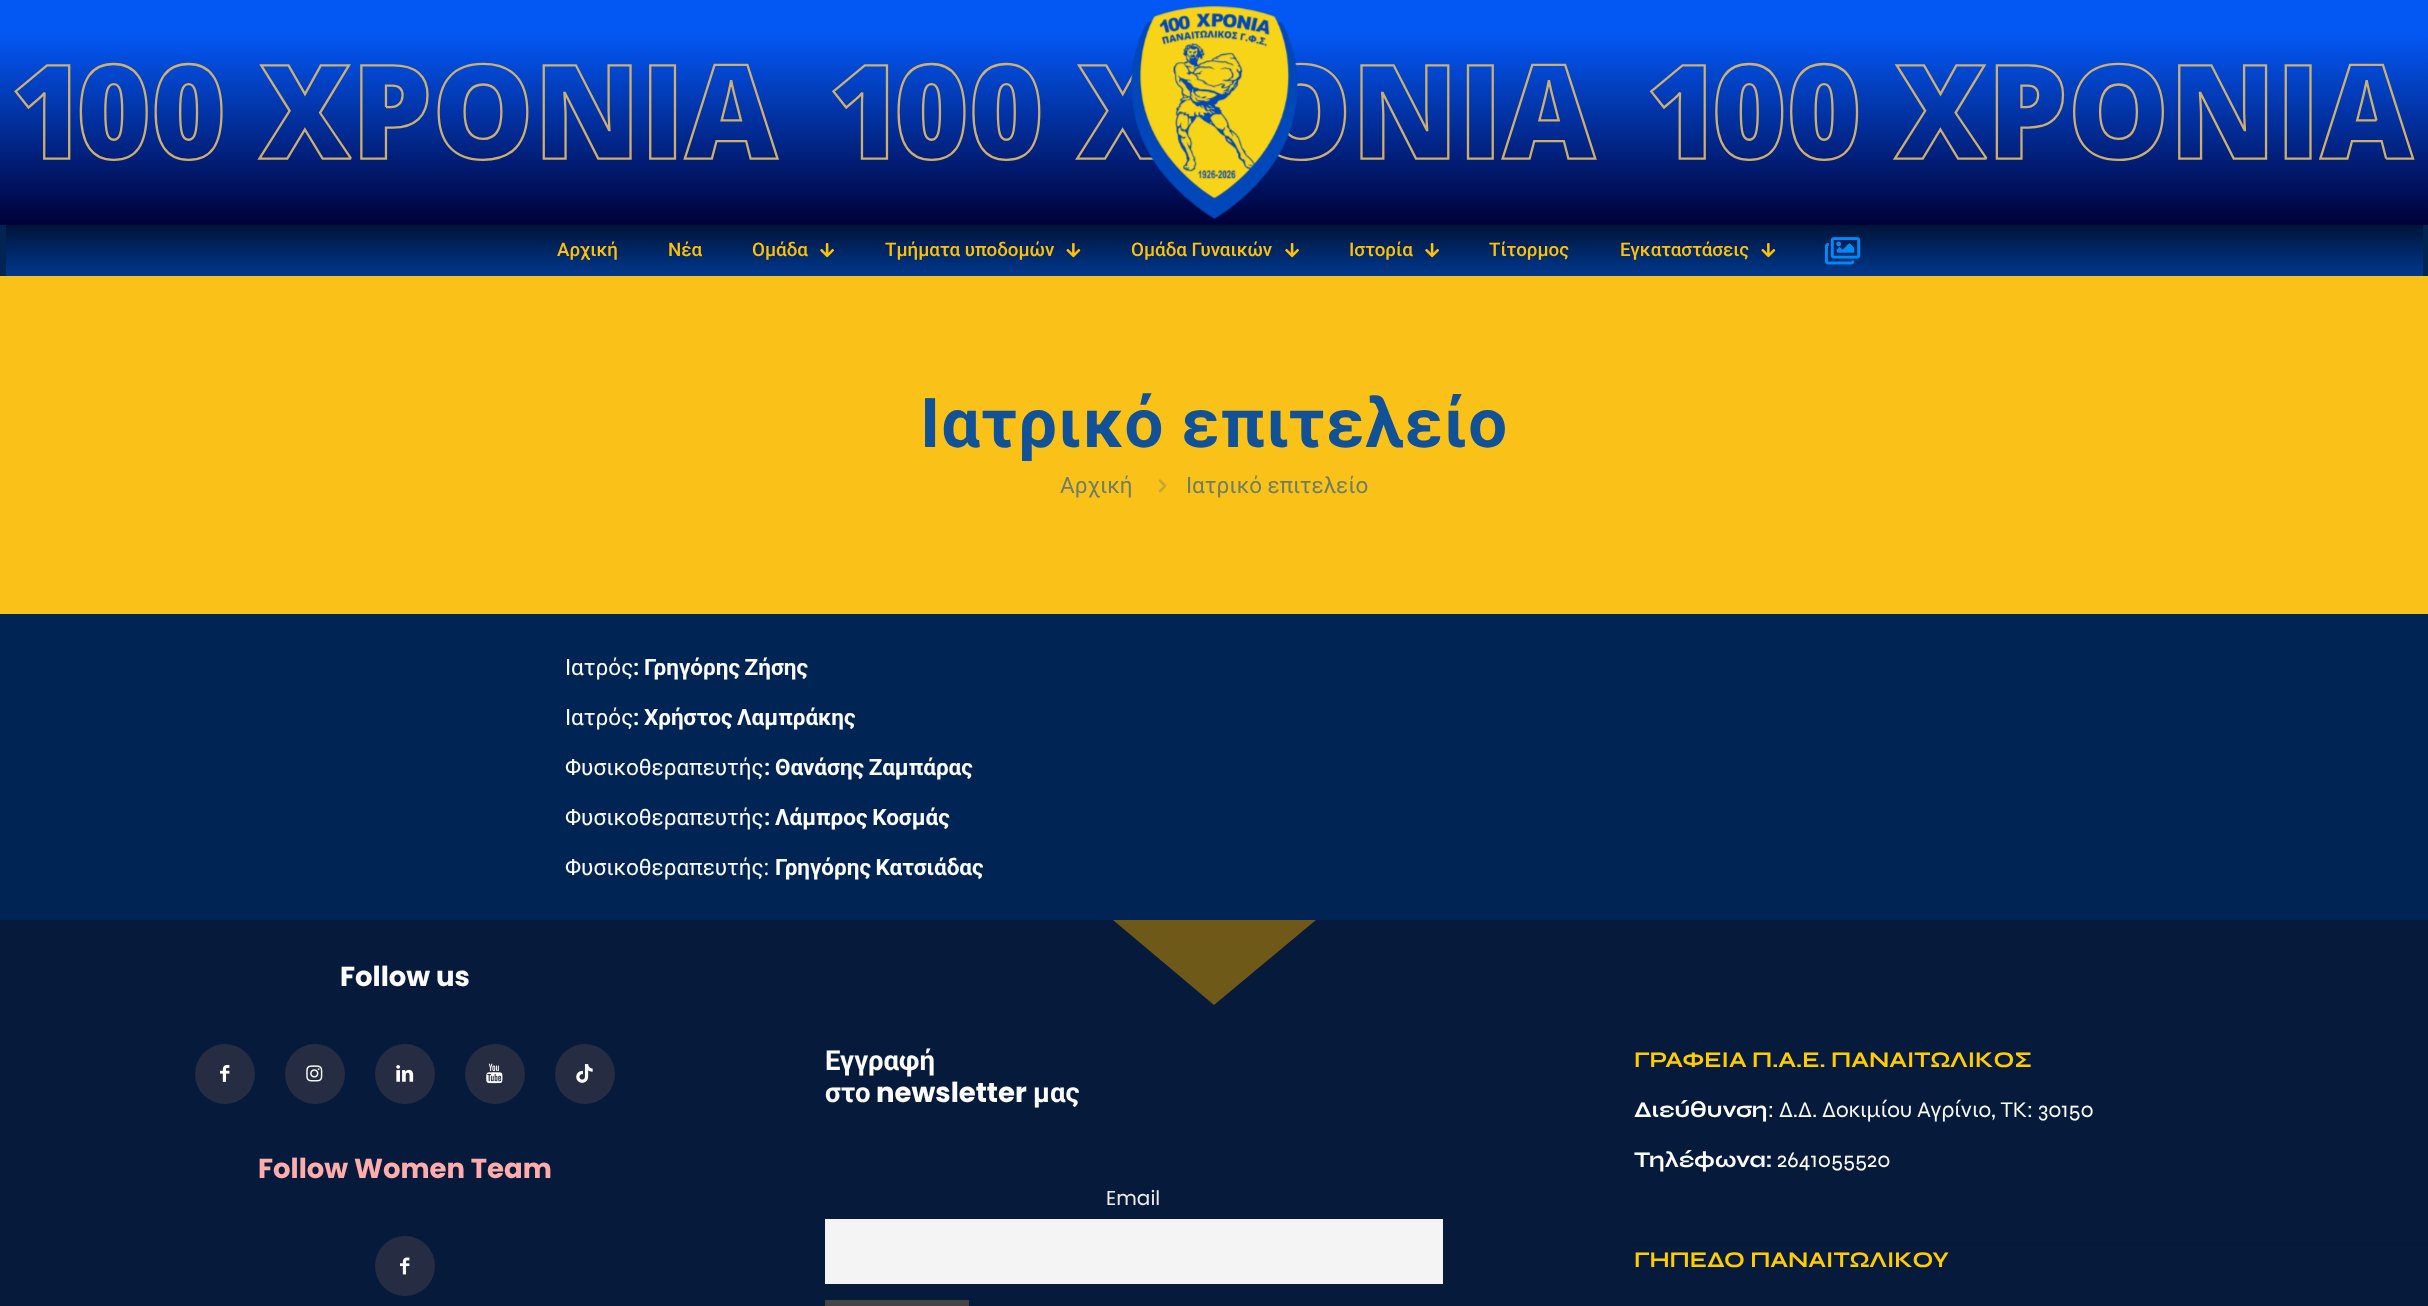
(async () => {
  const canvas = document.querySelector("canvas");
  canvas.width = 2428;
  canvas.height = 1306;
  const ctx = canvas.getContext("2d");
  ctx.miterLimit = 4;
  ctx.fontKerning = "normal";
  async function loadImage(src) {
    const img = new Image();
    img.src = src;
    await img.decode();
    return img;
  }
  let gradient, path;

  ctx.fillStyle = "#002555";
  ctx.fillRect(0, 0, 2428, 1306);
  ctx.fillStyle = "#061a3c";
  ctx.fillRect(0, 920, 2428, 386);
  gradient = ctx.createLinearGradient(1214, 225, 1214, 0);
  gradient.addColorStop(0, "#000037");
  gradient.addColorStop(0.85, "#0358f4");
  ctx.fillStyle = gradient;
  ctx.fillRect(0, 0, 2428, 225);
  ctx.drawImage(await loadImage("img/2.png"), 14, 62, 2401, 99);
  ctx.drawImage(await loadImage("img/1.png"), 1131, 6, 167, 213);
  gradient = ctx.createLinearGradient(1214, 276, 1214, 225);
  gradient.addColorStop(0, "#00388e");
  gradient.addColorStop(1, "#001439");
  ctx.fillStyle = gradient;
  ctx.fillRect(6, 225, 2417, 51);
  ctx.drawImage(await loadImage("img/3.png"), 820, 243, 14, 15);
  ctx.drawImage(await loadImage("img/4.png"), 1066, 243, 15, 15);
  ctx.drawImage(await loadImage("img/3.png"), 1285, 243, 14, 15);
  ctx.drawImage(await loadImage("img/3.png"), 1425, 243, 14, 15);
  ctx.drawImage(await loadImage("img/4.png"), 1761, 243, 15, 15);
  ctx.drawImage(await loadImage("img/5.png"), 1825, 237, 36, 28);
  ctx.fillStyle = "#fac219";
  ctx.fillRect(0, 276, 2428, 338);
  ctx.drawImage(await loadImage("img/6.png"), 1158, 479, 9, 14);
  ctx.fillStyle = "#6e5919";
  path = new Path2D("M1316 920H1113L1214 1005Z");
  ctx.fill(path);
  ctx.fillStyle = "#262d42";
  ctx.beginPath();
  ctx.arc(225, 1074, 30, 0, Math.PI * 2);
  ctx.fill();
  ctx.drawImage(await loadImage("img/7.png"), 220, 1065, 10, 17);
  ctx.beginPath();
  ctx.arc(315, 1074, 30, 0, Math.PI * 2);
  ctx.fill();
  ctx.drawImage(await loadImage("img/8.png"), 306, 1065, 17, 17);
  ctx.beginPath();
  ctx.arc(405, 1074, 30, 0, Math.PI * 2);
  ctx.fill();
  ctx.drawImage(await loadImage("img/9.png"), 396, 1065, 18, 17);
  ctx.beginPath();
  ctx.arc(495, 1074, 30, 0, Math.PI * 2);
  ctx.fill();
  ctx.drawImage(await loadImage("img/10.png"), 486, 1063, 17, 21);
  ctx.beginPath();
  ctx.arc(585, 1074, 30, 0, Math.PI * 2);
  ctx.fill();
  ctx.drawImage(await loadImage("img/11.png"), 576, 1064, 17, 19);
  ctx.beginPath();
  ctx.arc(405, 1266, 30, 0, Math.PI * 2);
  ctx.fill();
  ctx.drawImage(await loadImage("img/12.png"), 400, 1257, 10, 18);
  for (const [x, y, w, h, color] of [
    [825, 1219, 618, 65, "#f4f4f4"],
    [825, 1300, 144, 6, "#444444"],
    [1634, 1244, 794, 1, "#051837"],
  ]) {
    ctx.fillStyle = color;
    ctx.fillRect(x, y, w, h);
  }
  ctx.font = "500 18.75px Roboto";
  ctx.fillStyle = "#ffc107";
  for (const [text, x, y] of [
    ["Αρχική", 557, 256],
    ["Νέα", 668, 256],
    ["Ομάδα", 752, 256],
    ["Τμήματα υποδομών", 885, 256],
    ["Ομάδα Γυναικών", 1131, 256],
    ["Ιστορία", 1349, 256],
    ["Τίτορμος", 1489, 256],
    ["Εγκαταστάσεις", 1620, 256],
  ]) {
    ctx.fillText(text, x, y);
  }
  ctx.letterSpacing = "1.25px";
  ctx.wordSpacing = "-2px";
  ctx.font = "bold 68.75px Roboto";
  ctx.fillStyle = "#105197";
  ctx.fillText("Ιατρικό επιτελείο", 920, 447);
  ctx.letterSpacing = "0px";
  ctx.wordSpacing = "0px";
  ctx.font = "22.5px Roboto";
  ctx.fillStyle = "#6e7e65";
  ctx.fillText("Αρχική", 1060, 493);
  ctx.fillText("Ιατρικό επιτελείο", 1186, 493);
  ctx.fillStyle = "#fcfcfc";
  ctx.fillText("Ιατρός", 565, 675);
  ctx.wordSpacing = "-1px";
  ctx.font = "bold 22.5px Roboto";
  ctx.fillText(": Γρηγόρης Ζήσης", 633, 675);
  ctx.wordSpacing = "0px";
  ctx.font = "22.5px Roboto";
  ctx.fillText("Ιατρός", 565, 725);
  ctx.wordSpacing = "-1px";
  ctx.font = "bold 22.5px Roboto";
  ctx.fillText(": Χρήστος Λαμπράκης", 633, 725);
  ctx.wordSpacing = "0px";
  ctx.font = "22.5px Roboto";
  ctx.fillText("Φυσικοθεραπευτής", 565, 775);
  ctx.wordSpacing = "-1px";
  ctx.font = "bold 22.5px Roboto";
  ctx.fillText(": Θανάσης Ζαμπάρας", 764, 775);
  ctx.wordSpacing = "0px";
  ctx.font = "22.5px Roboto";
  ctx.fillText("Φυσικοθεραπευτής", 565, 825);
  ctx.wordSpacing = "-1px";
  ctx.font = "bold 22.5px Roboto";
  ctx.fillText(": Λάμπρος Κοσμάς", 764, 825);
  ctx.wordSpacing = "0px";
  ctx.font = "22.5px Roboto";
  ctx.fillText("Φυσικοθεραπευτής", 565, 875);
  ctx.font = "22.5px Poppins";
  ctx.fillText(":", 764, 875);
  ctx.wordSpacing = "-1px";
  ctx.font = "bold 22.5px Roboto";
  ctx.fillText("Γρηγόρης Κατσιάδας", 775, 875);
  ctx.wordSpacing = "0px";
  ctx.font = "bold 27.5px Poppins";
  ctx.fillText("Follow us", 340, 986);
  ctx.fillStyle = "#ffacac";
  ctx.fillText("Follow Women Team", 258, 1178);
  ctx.font = "bold 27.5px Roboto";
  ctx.fillStyle = "#fcfcfc";
  ctx.fillText("Εγγραφή", 825, 1070);
  ctx.fillText("στο", 825, 1102);
  ctx.font = "bold 27.5px Poppins";
  ctx.fillText("newsletter", 876, 1102);
  ctx.font = "bold 27.5px Roboto";
  ctx.fillText("μας", 1033, 1102);
  ctx.font = "20px Poppins";
  ctx.fillStyle = "#ededed";
  ctx.fillText("Email", 1106, 1205);
  ctx.font = "bold 22.5px Syne";
  ctx.fillStyle = "#ffcc00";
  ctx.fillText("ΓΡΑΦΕΙΑ Π.Α.Ε. ΠΑΝΑΙΤΩΛΙΚΟΣ", 1634, 1067);
  ctx.fillStyle = "#fcfcfc";
  ctx.fillText("Διεύθυνση", 1634, 1117);
  ctx.font = "22.5px Syne";
  ctx.fillText(": Δ.Δ. Δοκιμίου Αγρίνιο, TK: 30150", 1768, 1117);
  ctx.font = "bold 22.5px Syne";
  ctx.fillText("Τηλέφωνα:", 1634, 1167);
  ctx.font = "22.5px Syne";
  ctx.fillText("2641055520", 1777, 1167);
  ctx.font = "bold 22.5px Syne";
  ctx.fillStyle = "#ffcc00";
  ctx.fillText("ΓΗΠΕΔΟ ΠΑΝΑΙΤΩΛΙΚΟΥ", 1634, 1267);
})();
